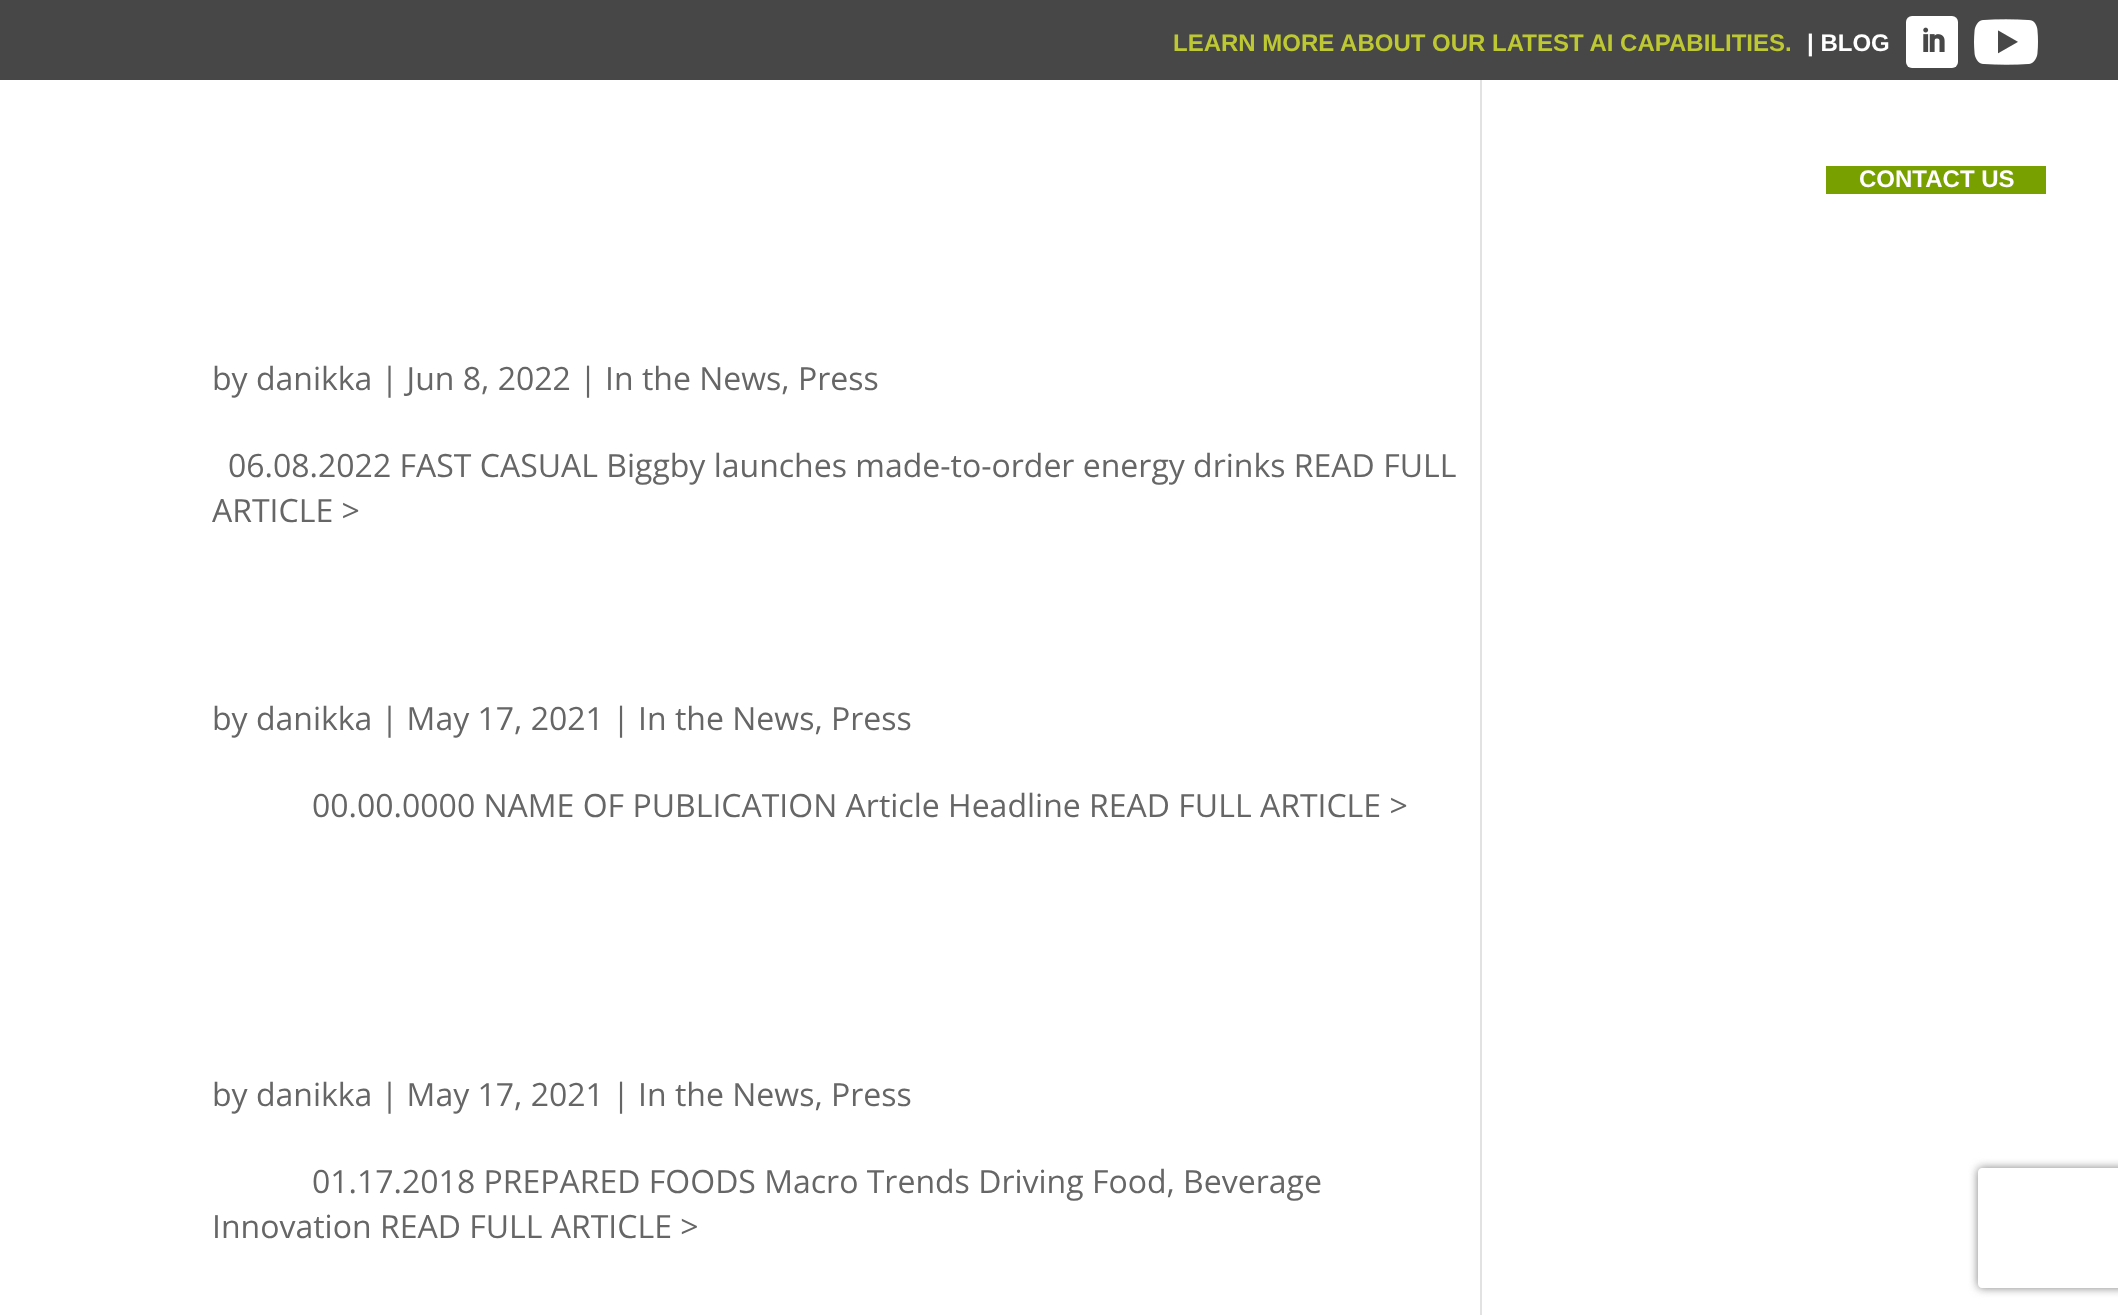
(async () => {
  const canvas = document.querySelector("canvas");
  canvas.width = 2118;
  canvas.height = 1315;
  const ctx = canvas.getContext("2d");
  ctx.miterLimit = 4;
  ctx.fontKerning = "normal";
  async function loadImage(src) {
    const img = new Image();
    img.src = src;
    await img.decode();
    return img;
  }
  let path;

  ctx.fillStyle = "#ffffff";
  ctx.fillRect(0, 0, 2118, 1315);
  ctx.fillStyle = "#474747";
  ctx.fillRect(0, 0, 2118, 80);
  ctx.fillStyle = "#ffffff";
  ctx.beginPath();
  ctx.roundRect(1906, 16, 52, 52, 6);
  ctx.fill();
  ctx.drawImage(await loadImage("img/1.png"), 1923, 27, 22, 25);
  ctx.drawImage(await loadImage("img/2.png"), 1974, 19, 64, 46);
  ctx.fillStyle = "#78a100";
  ctx.fillRect(1826, 166, 220, 28);
  ctx.fillStyle = "#e2e2e2";
  ctx.fillRect(1480, 80, 2, 1235);
  ctx.save();
  path = new Path2D("M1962 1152H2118V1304H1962ZM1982 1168H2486C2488 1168 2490 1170 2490 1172V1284C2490 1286 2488 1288 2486 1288H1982C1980 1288 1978 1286 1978 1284V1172C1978 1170 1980 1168 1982 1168Z");
  ctx.clip(path, "evenodd");
  ctx.fillStyle = "#808080";
  ctx.filter = "blur(5px)";
  ctx.beginPath();
  ctx.roundRect(1978, 1168, 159, 120, 4);
  ctx.fill();
  ctx.filter = "none";
  ctx.restore();
  ctx.font = "bold 24px Liberation Sans";
  ctx.fillStyle = "#bdc832";
  ctx.fillText("LEARN MORE ABOUT OUR LATEST AI CAPABILITIES.", 1173, 51);
  ctx.fillStyle = "#ffffff";
  ctx.fillText("| BLOG", 1807, 51);
  ctx.fillText("CONTACT US", 1859, 187);
  ctx.font = "32px Open Sans";
  ctx.fillStyle = "#666666";
  for (const [text, x, y] of [
    ["by danikka | Jun 8, 2022 | In the News, Press", 212, 390],
    ["06.08.2022 FAST CASUAL Biggby launches made-to-order energy drinks READ FULL", 228, 477],
    ["ARTICLE >", 212, 522],
    ["by danikka | May 17, 2021 | In the News, Press", 212, 730],
    ["00.00.0000 NAME OF PUBLICATION Article Headline READ FULL ARTICLE >", 312, 817],
    ["by danikka | May 17, 2021 | In the News, Press", 212, 1106],
    ["01.17.2018 PREPARED FOODS Macro Trends Driving Food, Beverage", 312, 1193],
    ["Innovation READ FULL ARTICLE >", 212, 1238],
  ]) {
    ctx.fillText(text, x, y);
  }
})();
